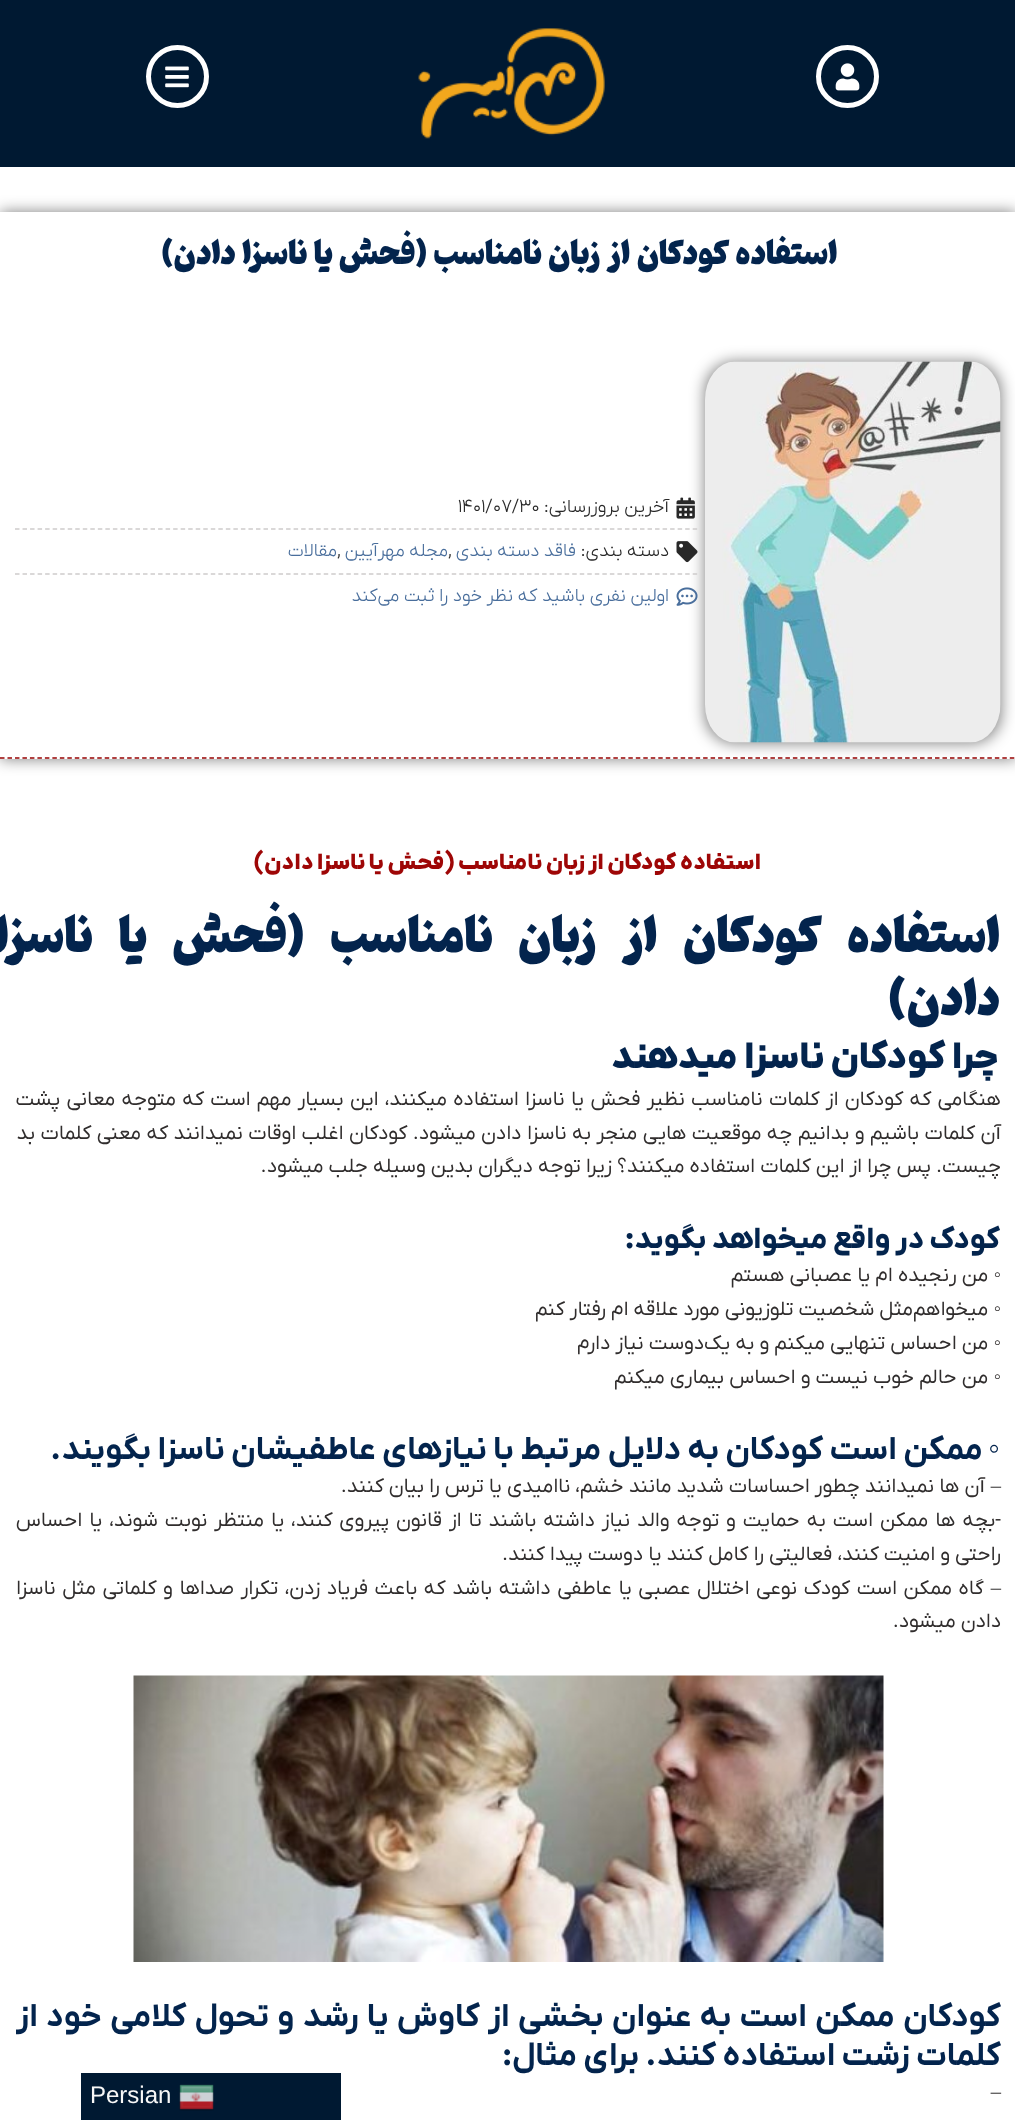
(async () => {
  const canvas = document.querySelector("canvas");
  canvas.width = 1015;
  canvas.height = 2120;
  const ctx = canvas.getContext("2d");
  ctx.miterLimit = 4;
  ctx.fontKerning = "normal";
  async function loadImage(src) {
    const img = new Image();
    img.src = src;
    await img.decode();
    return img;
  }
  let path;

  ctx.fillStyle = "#ffffff";
  ctx.fillRect(0, 0, 1015, 2120);
  ctx.fillStyle = "#001932";
  ctx.fillRect(0, 0, 1015, 167);
  ctx.beginPath();
  ctx.arc(847.5, 76.5, 29, 0, Math.PI * 2);
  ctx.strokeStyle = "#ffffff";
  ctx.lineWidth = 5;
  ctx.stroke();
  ctx.drawImage(await loadImage("img/1.png"), 835, 63, 25, 28);
  ctx.drawImage(await loadImage("img/2.png"), 418, 28, 187, 111);
  ctx.beginPath();
  ctx.arc(177.5, 76.5, 29, 0, Math.PI * 2);
  ctx.stroke();
  ctx.drawImage(await loadImage("img/3.png"), 165, 66, 24, 22);
  ctx.save();
  path = new Path2D("M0 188H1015V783H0ZM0 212H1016V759H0Z");
  ctx.clip(path, "evenodd");
  ctx.fillStyle = "rgba(0, 0, 0, 0.5)";
  ctx.filter = "blur(7.5px)";
  ctx.beginPath();
  ctx.rect(0, 212, 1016, 547);
  ctx.fill();
  ctx.filter = "none";
  ctx.restore();
  path = new Path2D("M0 758H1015.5");
  ctx.strokeStyle = "#970202";
  ctx.lineWidth = 1.5;
  ctx.setLineDash([4.5, 2.98]);
  ctx.stroke(path);
  ctx.fillStyle = "rgba(0, 0, 0, 0.5)";
  ctx.filter = "blur(7.5px)";
  ctx.beginPath();
  ctx.roundRect(705, 362, 296, 381, 30);
  ctx.fill();
  ctx.filter = "none";
  ctx.drawImage(await loadImage("img/4.png"), 705, 361, 296, 382);
  ctx.drawImage(await loadImage("img/5.png"), 676, 497, 19, 22);
  path = new Path2D("M15 529H697.5");
  ctx.strokeStyle = "#cecccc";
  ctx.setLineDash([4.5, 3.03]);
  ctx.stroke(path);
  ctx.drawImage(await loadImage("img/6.png"), 676, 541, 22, 22);
  path = new Path2D("M15 574H697.5");
  ctx.stroke(path);
  ctx.drawImage(await loadImage("img/7.png"), 676, 587, 22, 19);
  ctx.drawImage(await loadImage("img/8.png"), 133, 1675, 751, 287);
  ctx.fillStyle = "#001932";
  ctx.fillRect(81, 2073, 260, 47);
  ctx.drawImage(await loadImage("img/9.png"), 179, 2084, 35, 27);
  ctx.direction = "rtl";
  ctx.font = "900 30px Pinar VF";
  ctx.fillStyle = "#03244d";
  ctx.fillText("استفاده کودکان از زبان نامناسب (فحش یا ناسزا دادن)", 838, 264);
  ctx.font = "300 18.5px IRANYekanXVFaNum";
  ctx.fillStyle = "#282828";
  ctx.fillText("آخرین بروزرسانی:", 669, 512);
  ctx.direction = "ltr";
  ctx.fillText("۱۴۰۱/۰۷/۳۰", 458, 512);
  ctx.direction = "rtl";
  ctx.fillText("دسته بندی:", 669, 556);
  ctx.fillStyle = "#496e9c";
  ctx.fillText("فاقد دسته بندی", 576, 556);
  ctx.direction = "ltr";
  ctx.fillStyle = "#282828";
  ctx.fillText(",", 448, 556);
  ctx.direction = "rtl";
  ctx.fillStyle = "#496e9c";
  ctx.fillText("مجله مهرآیین", 448, 556);
  ctx.direction = "ltr";
  ctx.fillStyle = "#282828";
  ctx.fillText(",", 337, 556);
  ctx.direction = "rtl";
  ctx.fillStyle = "#496e9c";
  ctx.fillText("مقالات", 337, 556);
  ctx.fillText("اولین نفری باشید که نظر خود را ثبت می‌کند", 669, 601);
  ctx.font = "900 22.5px IRANYekanXVFaNum";
  ctx.fillStyle = "#9e0606";
  ctx.fillText("استفاده کودکان از زبان نامناسب (فحش یا ناسزا دادن)", 761, 869);
  ctx.wordSpacing = "16px";
  ctx.font = "900 45px Pinar VF";
  ctx.fillStyle = "#03244d";
  ctx.fillText("استفاده کودکان از زبان نامناسب (فحش یا ناسزا", 1001, 952);
  ctx.wordSpacing = "0px";
  ctx.fillText("دادن)", 1000, 1015);
  ctx.font = "900 37.5px IRANYekanXVFaNum";
  ctx.fillText("چرا کودکان ناسزا میدهند", 999, 1068);
  ctx.wordSpacing = "1.25px";
  ctx.font = "20.5px IRANYekanXVFaNum";
  ctx.fillStyle = "#302d2d";
  ctx.fillText("هنگامی که کودکان از کلمات نامناسب نظیر فحش یا ناسزا استفاده میکنند، این بسیار مهم است که متوجه معانی پشت", 1001, 1105);
  ctx.wordSpacing = "0.4px";
  ctx.fillText("آن کلمات باشیم و بدانیم چه موقعیت هایی منجر به ناسزا دادن میشود. کودکان اغلب اوقات نمیدانند که معنی کلمات بد", 1001, 1139);
  ctx.wordSpacing = "0px";
  ctx.fillText("چیست. پس چرا از این کلمات استفاده میکنند؟ زیرا توجه دیگران بدین وسیله جلب میشود.", 1001, 1172);
  ctx.font = "800 30px IRANYekanXVFaNum";
  ctx.fillStyle = "#03244d";
  ctx.fillText("کودک در واقع میخواهد بگوید:", 1000, 1248);
  ctx.font = "20.5px Liberation Serif";
  ctx.fillStyle = "#302d2d";
  ctx.fillText("◦", 1001, 1281);
  ctx.font = "20.5px IRANYekanXVFaNum";
  ctx.fillText("من رنجیده ام یا عصبانی هستم", 988, 1281);
  ctx.font = "20.5px Liberation Serif";
  ctx.fillText("◦", 1001, 1315);
  ctx.font = "20.5px IRANYekanXVFaNum";
  ctx.fillText("میخواهم‌مثل شخصیت تلوزیونی مورد علاقه ام رفتار کنم", 988, 1315);
  ctx.font = "20.5px Liberation Serif";
  ctx.fillText("◦", 1001, 1349);
  ctx.font = "20.5px IRANYekanXVFaNum";
  ctx.fillText("من احساس تنهایی میکنم و به یک‌دوست نیاز دارم", 988, 1349);
  ctx.font = "20.5px Liberation Serif";
  ctx.fillText("◦", 1001, 1383);
  ctx.font = "20.5px IRANYekanXVFaNum";
  ctx.fillText("من حالم خوب نیست و احساس بیماری میکنم", 988, 1383);
  ctx.font = "bold 32.8px Liberation Serif";
  ctx.fillStyle = "#03244d";
  ctx.fillText("◦", 1000, 1459);
  ctx.font = "bold 32.8px IRANYekanXVFaNum";
  ctx.fillText("ممکن است کودکان به دلایل مرتبط با نیازهای عاطفیشان ناسزا بگویند.", 983, 1459);
  ctx.font = "20.5px Liberation Serif";
  ctx.fillStyle = "#302d2d";
  ctx.fillText("–", 1001, 1492);
  ctx.font = "20.5px IRANYekanXVFaNum";
  ctx.fillText("آن ها نمیدانند چطور احساسات شدید مانند خشم، ناامیدی یا ترس را بیان کنند.", 985, 1492);
  ctx.wordSpacing = "1.9px";
  ctx.fillText("-بچه ها ممکن است به حمایت و توجه والد نیاز داشته باشند تا از قانون پیروی کنند، یا منتظر نوبت شوند، یا احساس", 1001, 1526);
  ctx.wordSpacing = "0px";
  ctx.fillText("راحتی و امنیت کنند، فعالیتی را کامل کنند یا دوست پیدا کنند.", 1001, 1560);
  ctx.font = "20.5px Liberation Serif";
  ctx.fillText("–", 1001, 1594);
  ctx.wordSpacing = "1.6px";
  ctx.font = "20.5px IRANYekanXVFaNum";
  ctx.fillText("گاه ممکن است کودک نوعی اختلال عصبی یا عاطفی داشته باشد که باعث فریاد زدن، تکرار صداها و کلماتی مثل ناسزا", 984, 1594);
  ctx.wordSpacing = "0px";
  ctx.fillText("دادن میشود.", 1001, 1627);
  ctx.wordSpacing = "1.9px";
  ctx.font = "bold 32.8px IRANYekanXVFaNum";
  ctx.fillStyle = "#03244d";
  ctx.fillText("کودکان ممکن است به عنوان بخشی از کاوش یا رشد و تحول کلامی خود از", 1001, 2026);
  ctx.wordSpacing = "0px";
  ctx.fillText("کلمات زشت استفاده کنند. برای مثال:", 1001, 2065);
  ctx.font = "20.5px Liberation Serif";
  ctx.fillStyle = "#302d2d";
  ctx.fillText("–", 1001, 2098);
  ctx.direction = "ltr";
  ctx.font = "24px Liberation Sans";
  ctx.fillStyle = "#f7f7f7";
  ctx.fillText("Persian", 90, 2103);
})();
